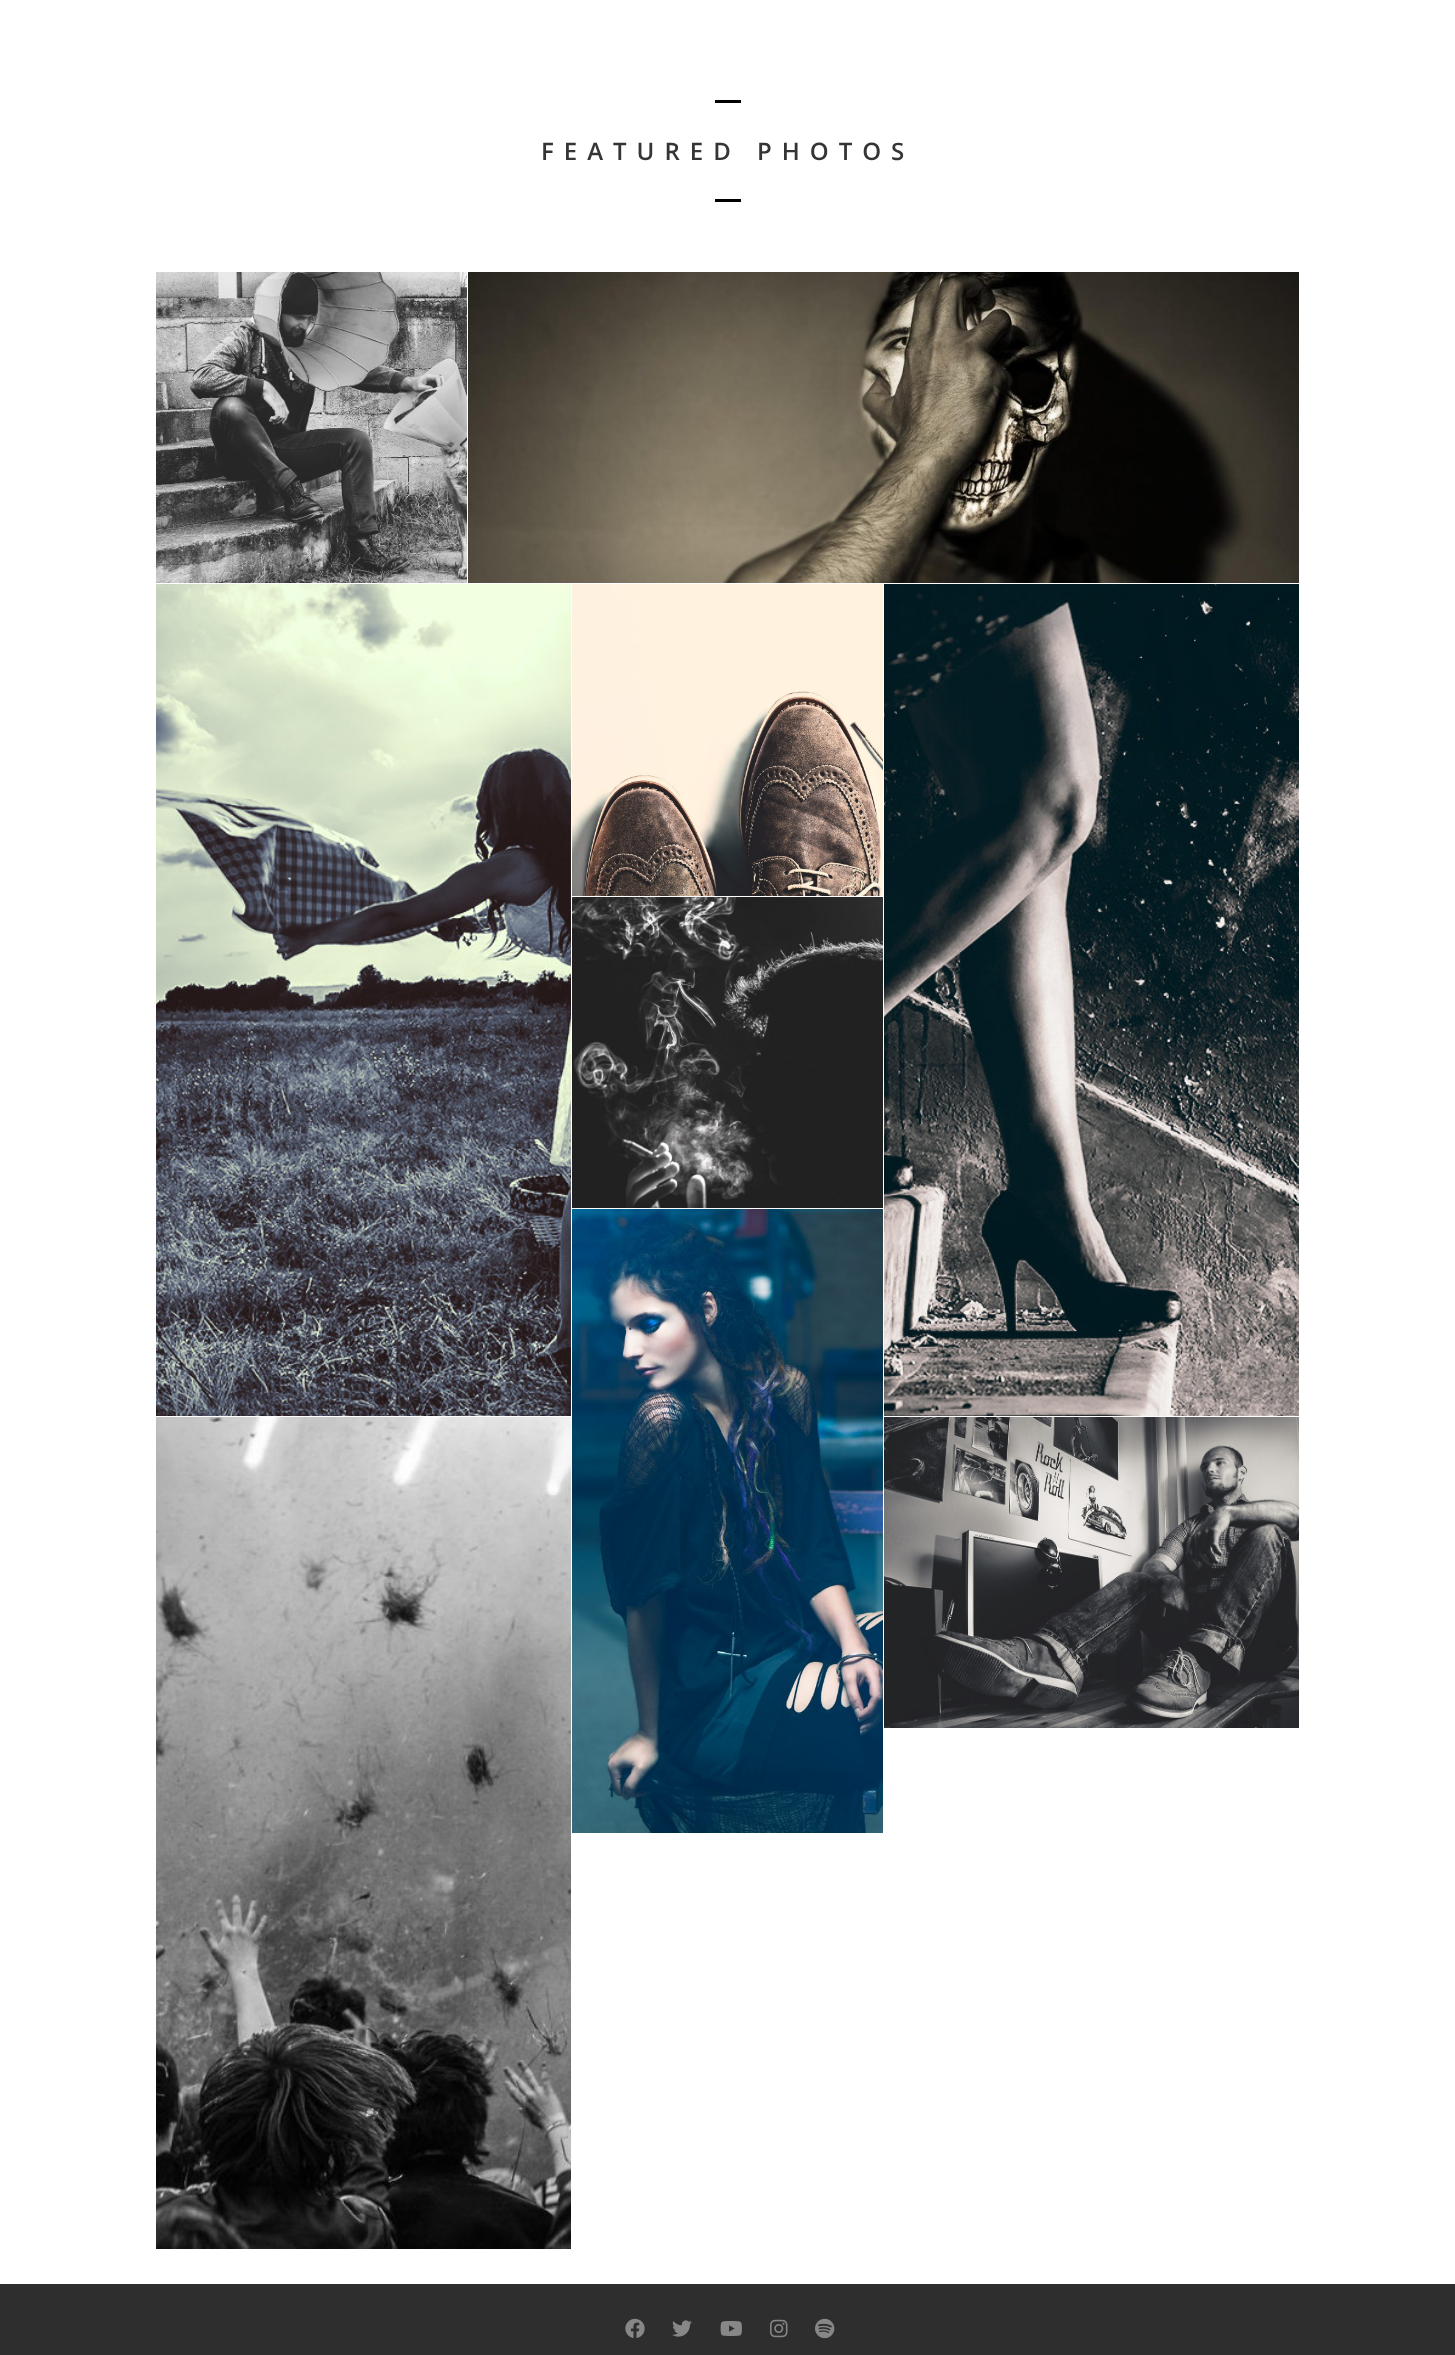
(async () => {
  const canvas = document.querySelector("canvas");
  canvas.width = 1455;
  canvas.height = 2355;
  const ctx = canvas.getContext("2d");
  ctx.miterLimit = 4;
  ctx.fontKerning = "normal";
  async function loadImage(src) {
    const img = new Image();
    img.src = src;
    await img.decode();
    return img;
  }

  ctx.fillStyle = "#ffffff";
  ctx.fillRect(0, 0, 1455, 2355);
  ctx.fillStyle = "#000000";
  ctx.fillRect(715, 100, 26, 3);
  ctx.fillRect(715, 199, 26, 3);
  ctx.drawImage(await loadImage("img/1.png"), 156, 272, 311, 311);
  ctx.drawImage(await loadImage("img/2.png"), 468, 272, 831, 311);
  ctx.drawImage(await loadImage("img/3.png"), 156, 584, 415, 832);
  ctx.drawImage(await loadImage("img/4.png"), 572, 584, 311, 312);
  ctx.drawImage(await loadImage("img/5.png"), 884, 584, 415, 832);
  ctx.drawImage(await loadImage("img/6.png"), 572, 897, 311, 311);
  ctx.drawImage(await loadImage("img/7.png"), 156, 1417, 415, 832);
  ctx.drawImage(await loadImage("img/8.png"), 572, 1209, 311, 624);
  ctx.drawImage(await loadImage("img/9.png"), 884, 1417, 415, 311);
  ctx.fillStyle = "#2e2e2e";
  ctx.fillRect(0, 2284, 1455, 71);
  ctx.drawImage(await loadImage("img/10.png"), 625, 2318, 20, 20);
  ctx.drawImage(await loadImage("img/11.png"), 672, 2320, 20, 17);
  ctx.drawImage(await loadImage("img/12.png"), 720, 2321, 22, 15);
  ctx.drawImage(await loadImage("img/13.png"), 770, 2319, 18, 19);
  ctx.drawImage(await loadImage("img/14.png"), 815, 2318, 20, 21);
  ctx.letterSpacing = "10px";
  ctx.font = "600 24px Open Sans";
  ctx.fillStyle = "#353535";
  ctx.fillText("FEATURED PHOTOS", 541, 160);
})();
